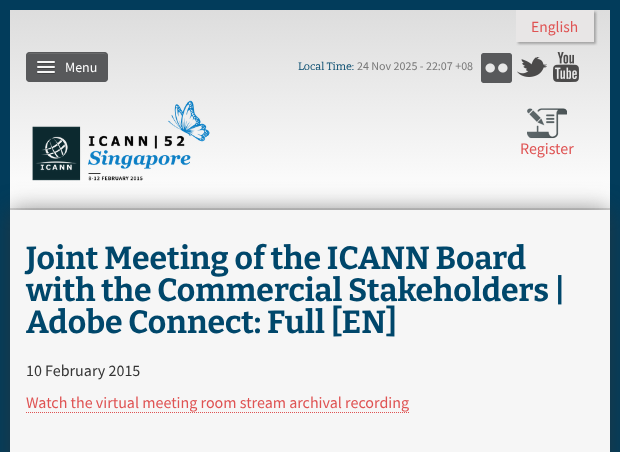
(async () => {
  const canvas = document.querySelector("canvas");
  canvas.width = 620;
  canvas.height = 452;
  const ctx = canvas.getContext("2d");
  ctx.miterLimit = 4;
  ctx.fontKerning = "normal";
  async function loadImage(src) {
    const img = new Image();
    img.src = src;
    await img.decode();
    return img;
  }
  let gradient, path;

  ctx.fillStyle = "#023c5b";
  ctx.fillRect(0, 0, 620, 452);
  gradient = ctx.createLinearGradient(310, 10, 310, 208);
  gradient.addColorStop(0, "#dddddd");
  gradient.addColorStop(1, "#ffffff");
  ctx.fillStyle = gradient;
  ctx.fillRect(10, 10, 600, 198);
  gradient = ctx.createLinearGradient(310, 208, 310, 406);
  gradient.addColorStop(0, "#dddddd");
  gradient.addColorStop(1, "#ffffff");
  ctx.fillStyle = gradient;
  ctx.fillRect(10, 208, 600, 2);
  ctx.fillStyle = "rgba(104, 104, 104, 0.5)";
  ctx.filter = "blur(1px)";
  ctx.beginPath();
  ctx.rect(518, 12, 78, 32);
  ctx.fill();
  ctx.filter = "none";
  ctx.fillStyle = "#e8e6e6";
  ctx.fillRect(516, 10, 78, 32);
  ctx.fillStyle = "#58595b";
  ctx.beginPath();
  ctx.roundRect(26, 52, 82, 30, 4);
  ctx.fill();
  ctx.fillStyle = "#696a6b";
  path = new Path2D("M30 54H104C106 54 107 55 107 57C107 50 96 53 92 53H42C38 53 27 50 27 57C27 55 28 54 30 54Z");
  ctx.fill(path);
  ctx.beginPath();
  ctx.roundRect(26.5, 52.5, 81, 29, 3.5);
  ctx.strokeStyle = "#58595b";
  ctx.stroke();
  ctx.fillStyle = "#424344";
  path = new Path2D("M37 62.5C36 64.5 40.5 64 40.5 64H51.5C51.5 64 56 64.5 55 62.5C54 63.5 47.5 63 46 63C44.5 63 38 63.5 37 62.5Z");
  ctx.fill(path);
  ctx.fillStyle = "#f5f5f5";
  ctx.beginPath();
  ctx.roundRect(37, 61, 18, 2, 1);
  ctx.fill();
  ctx.fillStyle = "#424344";
  path = new Path2D("M37 67.5C36 69.5 40.5 69 40.5 69H51.5C51.5 69 56 69.5 55 67.5C54 68.5 47.5 68 46 68C44.5 68 38 68.5 37 67.5Z");
  ctx.fill(path);
  ctx.fillStyle = "#f5f5f5";
  ctx.beginPath();
  ctx.roundRect(37, 66, 18, 2, 1);
  ctx.fill();
  ctx.fillStyle = "#424344";
  path = new Path2D("M37 72.5C36 74.5 40.5 74 40.5 74H51.5C51.5 74 56 74.5 55 72.5C54 73.5 47.5 73 46 73C44.5 73 38 73.5 37 72.5Z");
  ctx.fill(path);
  ctx.fillStyle = "#f5f5f5";
  ctx.beginPath();
  ctx.roundRect(37, 71, 18, 2, 1);
  ctx.fill();
  ctx.drawImage(await loadImage("img/1.png"), 481, 53, 31, 30);
  ctx.drawImage(await loadImage("img/2.png"), 517, 57, 30, 20);
  ctx.drawImage(await loadImage("img/3.png"), 553, 52, 26, 30);
  ctx.drawImage(await loadImage("img/4.png"), 32, 100, 178, 81);
  ctx.drawImage(await loadImage("img/5.png"), 527, 108, 40, 31);
  ctx.fillStyle = "rgba(53, 53, 53, 0.6)";
  ctx.filter = "blur(12.5px)";
  ctx.beginPath();
  ctx.rect(10, 210, 600, 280);
  ctx.fill();
  ctx.filter = "none";
  ctx.fillStyle = "#f6f6f6";
  ctx.fillRect(10, 210, 600, 242);
  path = new Path2D("M26 412.5H409");
  ctx.strokeStyle = "#df5353";
  ctx.setLineDash([1, 1]);
  ctx.stroke(path);
  ctx.font = "15.5px Source Sans Pro";
  ctx.fillStyle = "#df5353";
  ctx.fillText("English", 531, 32);
  ctx.font = "14px Source Sans Pro";
  ctx.fillStyle = "#ffffff";
  ctx.fillText("Menu", 65, 72);
  ctx.font = "10.75px Bitter";
  ctx.fillStyle = "#00476b";
  ctx.fillText("Local Time:", 298, 70);
  ctx.font = "12px Source Sans Pro";
  ctx.fillStyle = "#797979";
  ctx.fillText("24 Nov 2025 - 22:07 +08", 357, 70);
  ctx.font = "16px Source Sans Pro";
  ctx.fillStyle = "#df5353";
  ctx.fillText("Register", 520, 154);
  ctx.font = "bold 32px Bitter";
  ctx.fillStyle = "#00476b";
  for (const [text, x, y] of [
    ["Joint Meeting of the ICANN Board", 26, 269],
    ["with the Commercial Stakeholders |", 26, 301],
    ["Adobe Connect: Full [EN]", 26, 333],
  ]) {
    ctx.fillText(text, x, y);
  }
  ctx.font = "16px Source Sans Pro";
  ctx.fillStyle = "#353535";
  ctx.fillText("10 February 2015", 26, 376);
  ctx.fillStyle = "#df5353";
  ctx.fillText("Watch the virtual meeting room stream archival recording", 26, 408);
})();
